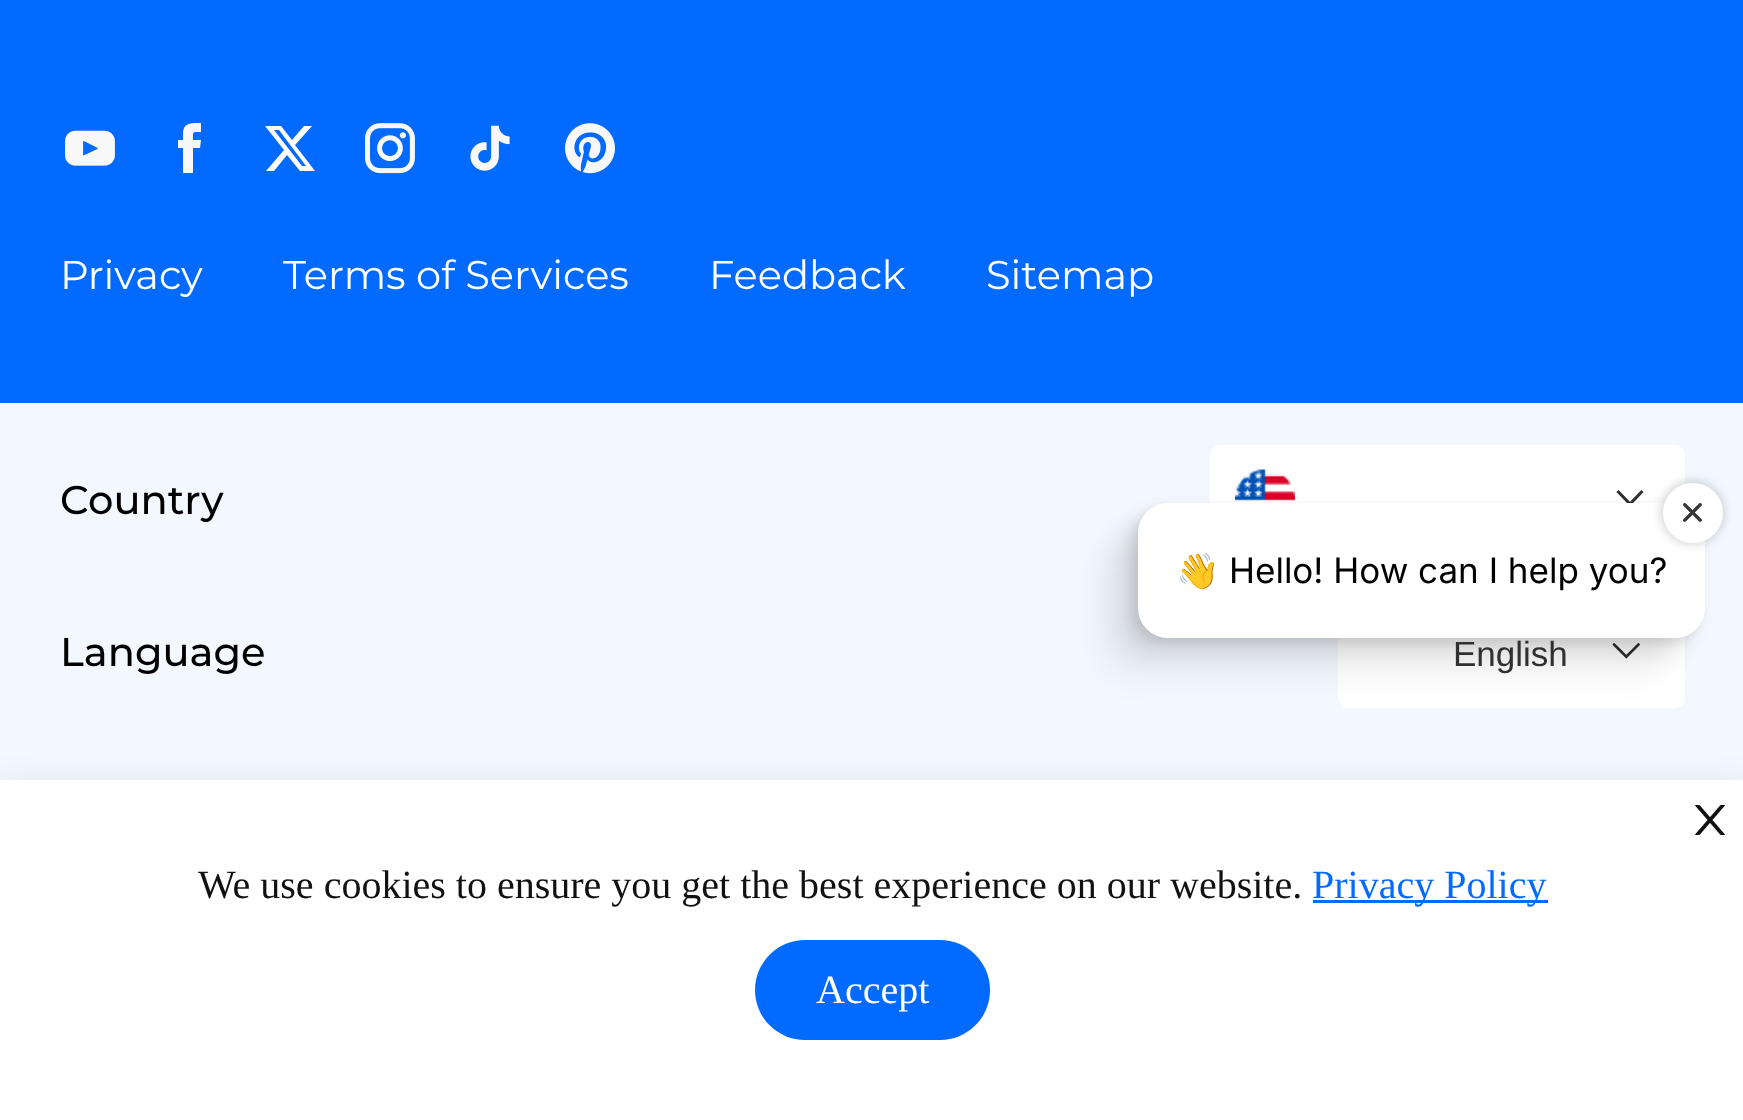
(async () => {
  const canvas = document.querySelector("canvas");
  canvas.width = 1743;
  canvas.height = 1120;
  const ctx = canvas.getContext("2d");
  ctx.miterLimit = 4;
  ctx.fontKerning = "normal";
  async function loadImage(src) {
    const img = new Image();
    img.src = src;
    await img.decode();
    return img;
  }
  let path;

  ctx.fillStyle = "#f3f8ff";
  ctx.fillRect(0, 0, 1743, 1120);
  ctx.fillStyle = "#036aff";
  ctx.fillRect(0, 0, 1743, 403);
  ctx.drawImage(await loadImage("img/1.png"), 65, 130, 50, 36);
  ctx.fillStyle = "#f8f8f8";
  path = new Path2D("M183 133V140H178V148H183V173H193V148H200L201 140H193C193 131 192 132 201 132V123C193 123 183 122 183 133Z");
  ctx.fill(path);
  ctx.fillStyle = "#ffffff";
  path = new Path2D("M304 126H312L295 145L315 171H300L287 155L274 171H266L284 150L265 126H281L292 140ZM302 166H306L279 130H274Z");
  ctx.fill(path);
  ctx.drawImage(await loadImage("img/2.png"), 365, 123, 50, 51);
  ctx.drawImage(await loadImage("img/3.png"), 470, 125, 40, 46);
  ctx.drawImage(await loadImage("img/4.png"), 565, 123, 50, 51);
  ctx.beginPath();
  ctx.roundRect(1210, 445, 475, 110, 10);
  ctx.fill();
  ctx.drawImage(await loadImage("img/5.png"), 1235, 469, 60, 34);
  path = new Path2D("M1617.5 491L1630 504L1642.5 491");
  ctx.strokeStyle = "#303030";
  ctx.lineWidth = 3.1;
  ctx.lineJoin = "round";
  ctx.stroke(path);
  ctx.beginPath();
  ctx.roundRect(1338, 598, 347, 110, 10);
  ctx.fill();
  ctx.drawImage(await loadImage("img/6.png"), 1612, 643, 28, 16);
  ctx.fillStyle = "rgba(0, 0, 0, 0.1)";
  ctx.filter = "blur(6px)";
  ctx.beginPath();
  ctx.roundRect(1133, 508, 567, 135, 30);
  ctx.fill();
  ctx.filter = "none";
  ctx.fillStyle = "rgba(0, 0, 0, 0.09)";
  ctx.filter = "blur(12.5px)";
  ctx.beginPath();
  ctx.roundRect(1120, 520, 568, 135, 30);
  ctx.fill();
  ctx.filter = "none";
  ctx.fillStyle = "rgba(0, 0, 0, 0.05)";
  ctx.filter = "blur(16px)";
  ctx.beginPath();
  ctx.roundRect(1100, 540, 568, 135, 30);
  ctx.fill();
  ctx.filter = "none";
  ctx.fillStyle = "#ffffff";
  ctx.beginPath();
  ctx.roundRect(1138, 503, 567, 135, 30);
  ctx.fill();
  ctx.fillStyle = "rgba(0, 0, 0, 0.15)";
  ctx.filter = "blur(5px)";
  ctx.beginPath();
  ctx.roundRect(1660, 480, 65, 65, 32.5);
  ctx.fill();
  ctx.filter = "none";
  ctx.fillStyle = "#ffffff";
  ctx.beginPath();
  ctx.arc(1693, 513, 30, 0, Math.PI * 2);
  ctx.fill();
  ctx.drawImage(await loadImage("img/7.png"), 1683, 503, 19, 19);
  ctx.fillStyle = "rgba(0, 0, 0, 0.15)";
  ctx.filter = "blur(19px)";
  ctx.beginPath();
  ctx.rect(0, 793, 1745, 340);
  ctx.fill();
  ctx.filter = "none";
  ctx.fillStyle = "#ffffff";
  ctx.fillRect(0, 780, 1743, 340);
  ctx.drawImage(await loadImage("img/8.png"), 1695, 805, 30, 30);
  ctx.fillStyle = "#036aff";
  ctx.fillRect(1313, 900, 235, 3);
  ctx.beginPath();
  ctx.roundRect(755, 940, 235, 100, 50);
  ctx.fill();
  ctx.font = "40px Montserrat";
  ctx.fillStyle = "#ffffff";
  for (const [text, x, y] of [
    ["Privacy", 60, 289],
    ["Terms of Services", 283, 289],
    ["Feedback", 709, 289],
    ["Sitemap", 986, 289],
  ]) {
    ctx.fillText(text, x, y);
  }
  ctx.font = "500 40px Montserrat";
  ctx.fillStyle = "#000000";
  ctx.fillText("Country", 60, 514);
  ctx.fillText("Language", 60, 666);
  ctx.font = "35px Liberation Sans";
  ctx.fillStyle = "#303030";
  ctx.fillText("English", 1453, 666);
  ctx.font = "35px Noto Color Emoji";
  ctx.fillStyle = "#000000";
  ctx.fillText("👋", 1176, 583);
  ctx.font = "35px Inter";
  ctx.fillText("Hello! How can I help you?", 1229, 583);
  ctx.font = "40px Liberation Serif";
  ctx.fillStyle = "#111111";
  ctx.fillText("We use cookies to ensure you get the best experience on our website.", 198, 898);
  ctx.fillStyle = "#036aff";
  ctx.fillText("Privacy Policy", 1312, 898);
  ctx.fillStyle = "#ffffff";
  ctx.fillText("Accept", 816, 1003);
})();
